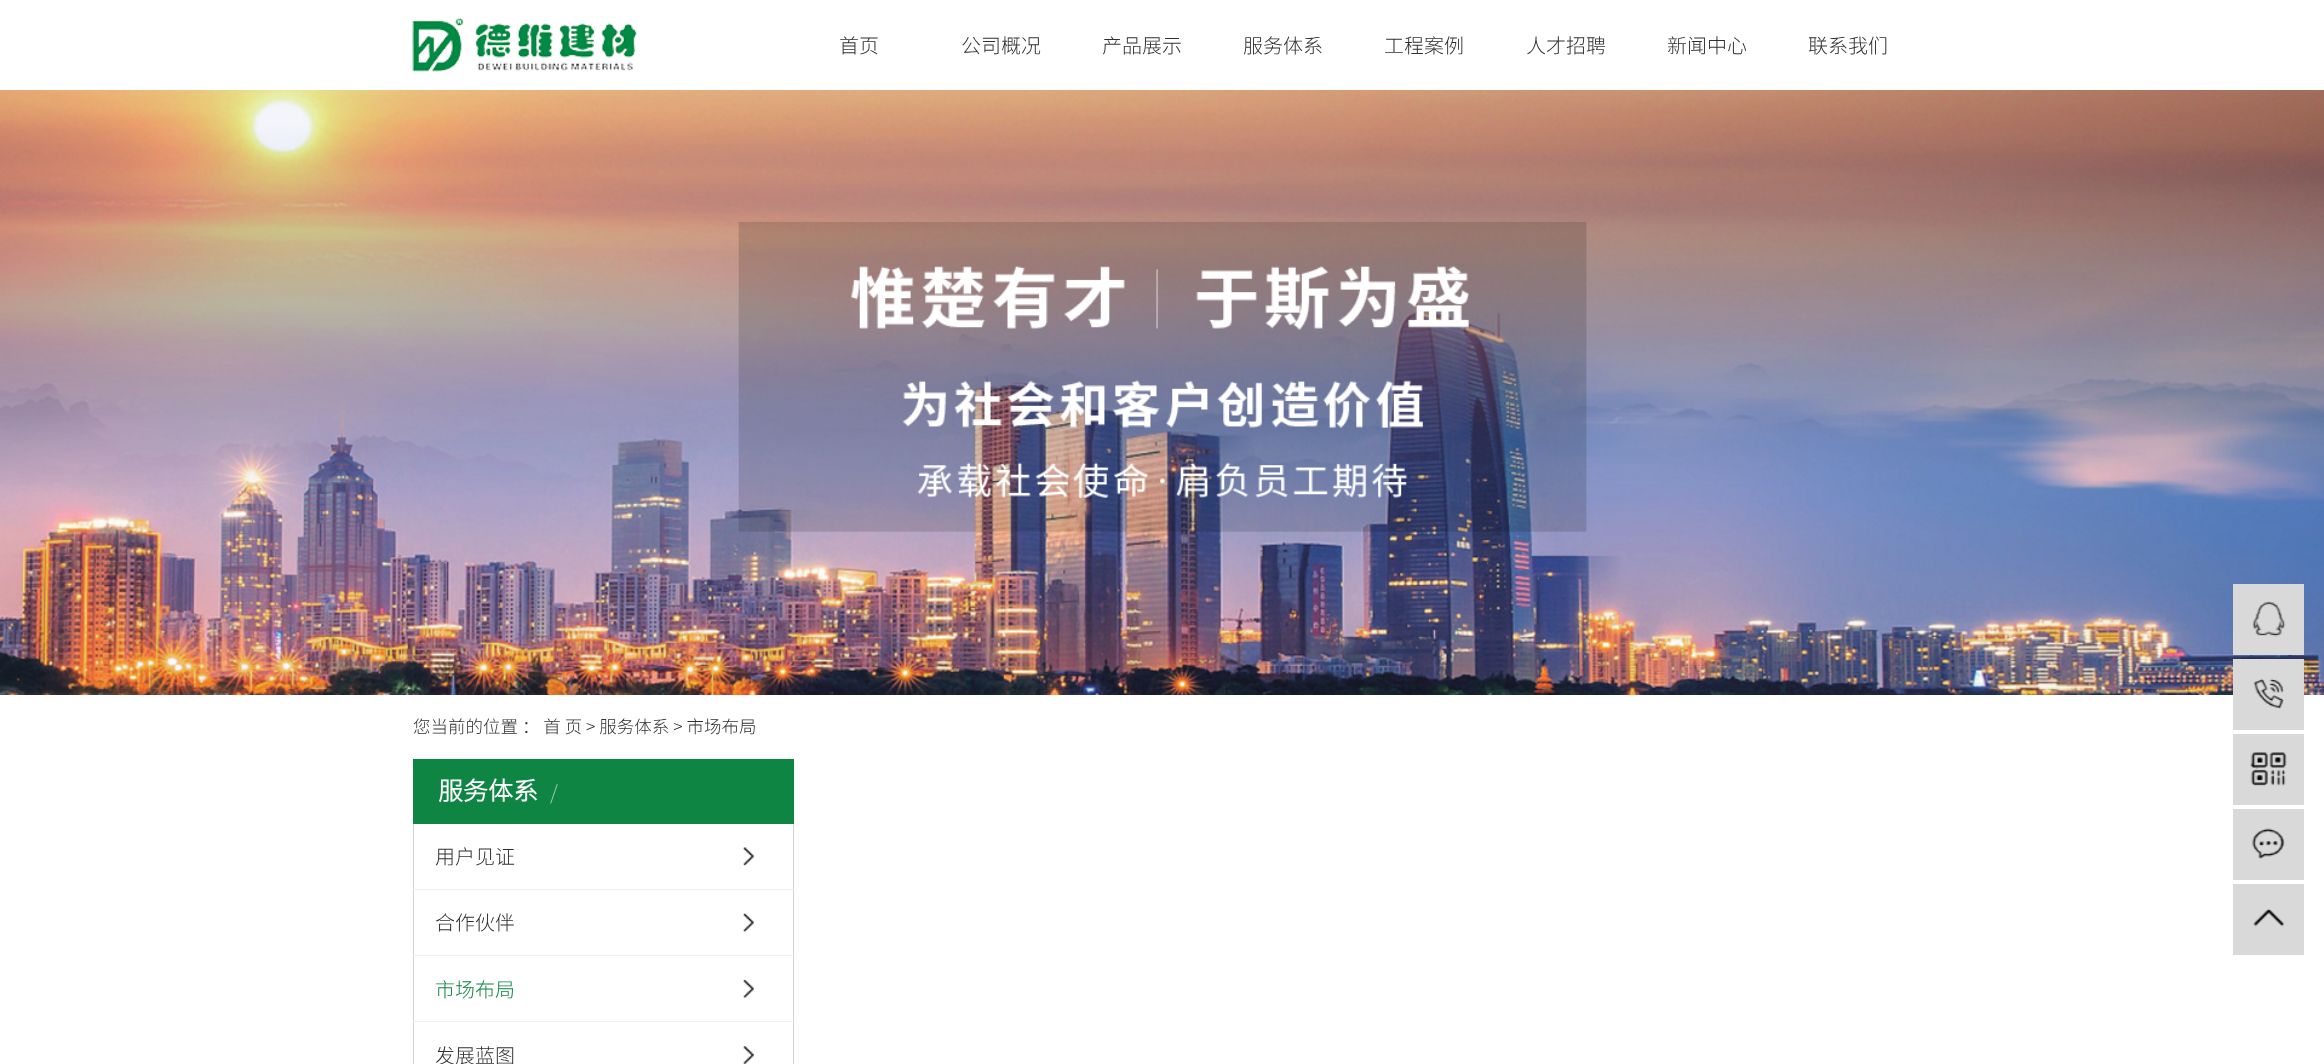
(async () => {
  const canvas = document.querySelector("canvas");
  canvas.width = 2324;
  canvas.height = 1064;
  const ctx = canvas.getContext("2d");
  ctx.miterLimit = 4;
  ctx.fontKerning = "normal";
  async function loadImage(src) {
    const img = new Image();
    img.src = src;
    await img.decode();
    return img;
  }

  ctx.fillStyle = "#ffffff";
  ctx.fillRect(0, 0, 2324, 1064);
  ctx.drawImage(await loadImage("img/1.png"), 412, 18, 225, 54);
  ctx.drawImage(await loadImage("img/2.png"), 0, 90, 2324, 605);
  ctx.fillStyle = "#d9d9d9";
  ctx.fillRect(2233, 584, 71, 71);
  ctx.drawImage(await loadImage("img/3.png"), 2252, 601, 34, 36);
  ctx.fillRect(2233, 659, 71, 71);
  ctx.drawImage(await loadImage("img/4.png"), 2253, 678, 31, 31);
  ctx.fillRect(2233, 734, 71, 71);
  ctx.drawImage(await loadImage("img/5.png"), 2250, 752, 37, 34);
  ctx.fillRect(2233, 809, 71, 71);
  ctx.drawImage(await loadImage("img/6.png"), 2251, 828, 34, 31);
  ctx.fillRect(2233, 884, 71, 71);
  ctx.drawImage(await loadImage("img/7.png"), 2253, 908, 32, 19);
  for (const [x, y, w, h, color] of [
    [413, 759, 381, 65, "#0e8543"],
    [793, 824, 1, 240, "#d2d2d2"],
    [413, 824, 1, 240, "#d2d2d2"],
    [413, 889, 381, 1, "#eeeeee"],
  ]) {
    ctx.fillStyle = color;
    ctx.fillRect(x, y, w, h);
  }
  ctx.drawImage(await loadImage("img/8.png"), 743, 847, 11, 19);
  ctx.fillRect(413, 955, 381, 1);
  ctx.drawImage(await loadImage("img/9.png"), 743, 913, 11, 19);
  ctx.fillRect(413, 1021, 381, 1);
  ctx.drawImage(await loadImage("img/10.png"), 743, 979, 11, 19);
  ctx.drawImage(await loadImage("img/11.png"), 743, 1046, 11, 18);
  ctx.font = "300 20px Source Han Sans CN";
  ctx.fillStyle = "#2f2f2f";
  for (const [text, x, y] of [
    ["首页", 839, 53],
    ["公司概况", 961, 53],
    ["产品展示", 1102, 53],
    ["服务体系", 1243, 53],
    ["工程案例", 1384, 53],
    ["人才招聘", 1526, 53],
    ["新闻中心", 1667, 53],
    ["联系我们", 1808, 53],
  ]) {
    ctx.fillText(text, x, y);
  }
  ctx.font = "300 17.5px Source Han Sans CN";
  ctx.fillText("您当前的位置 ： 首 页 > 服务体系 > 市场布局", 413, 733);
  ctx.font = "bold 25px Source Han Sans CN";
  ctx.fillStyle = "#ffffff";
  ctx.fillText("服务体系", 438, 800);
  ctx.font = "300 20px Source Han Sans CN";
  ctx.fillStyle = "#9fceb4";
  ctx.fillText("/", 550, 800);
  ctx.fillStyle = "#2f2f2f";
  ctx.fillText("用户见证", 435, 864);
  ctx.fillText("合作伙伴", 435, 930);
  ctx.fillStyle = "#0e8543";
  ctx.fillText("市场布局", 435, 997);
  ctx.fillStyle = "#2f2f2f";
  ctx.fillText("发展蓝图", 435, 1063);
})();
